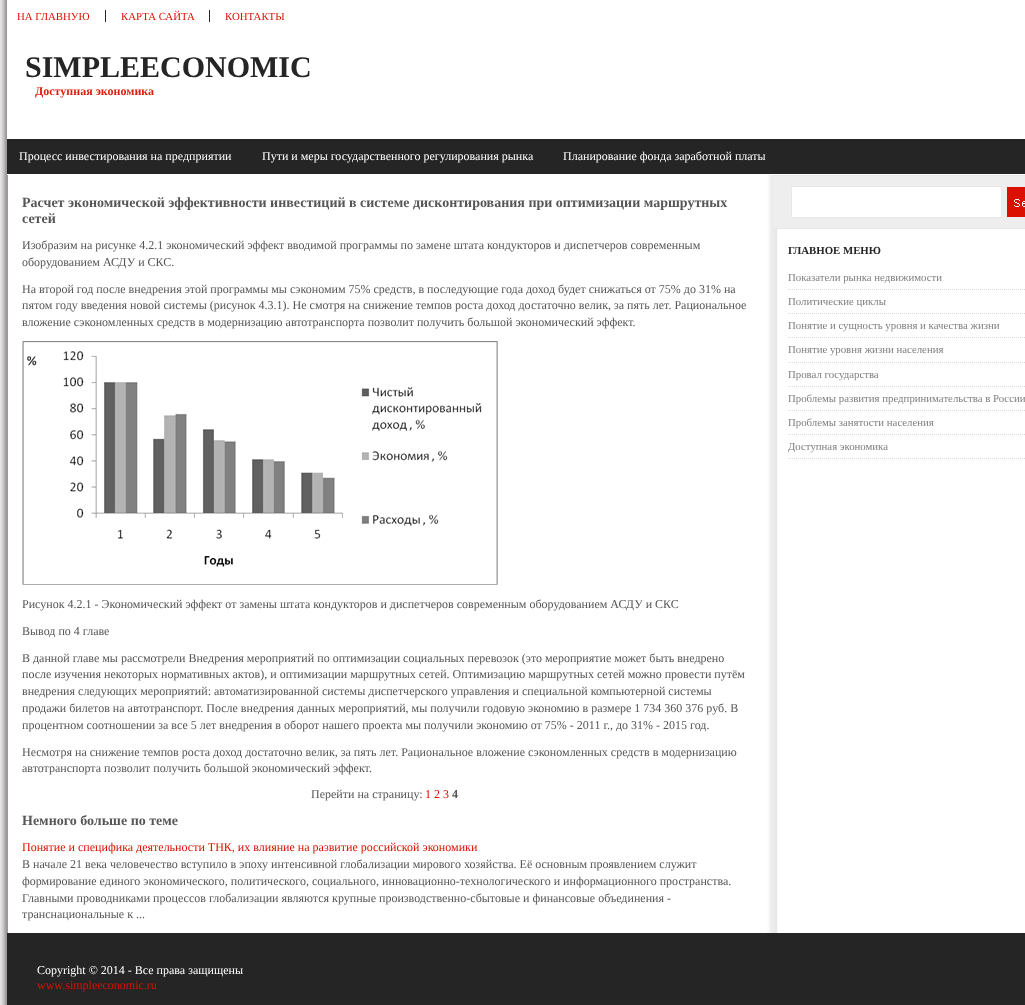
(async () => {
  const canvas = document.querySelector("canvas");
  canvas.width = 1025;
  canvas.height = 1005;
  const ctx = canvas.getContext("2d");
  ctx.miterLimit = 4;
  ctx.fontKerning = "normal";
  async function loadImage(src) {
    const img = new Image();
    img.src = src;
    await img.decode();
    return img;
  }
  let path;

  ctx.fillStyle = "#ffffff";
  ctx.fillRect(0, 0, 1025, 1005);
  ctx.drawImage(await loadImage("img/1.png"), 0, 0, 1025, 1005);
  for (const [x, y, w, h, color] of [
    [7, 0, 771, 175, "#ffffff"],
    [105, 10, 1, 12, "#252525"],
    [209, 10, 1, 12, "#252525"],
    [7, 139, 1018, 35, "#252525"],
  ]) {
    ctx.fillStyle = color;
    ctx.fillRect(x, y, w, h);
  }
  ctx.drawImage(await loadImage("img/2.png"), 22, 341, 476, 244);
  ctx.fillStyle = "#eeeeee";
  ctx.fillRect(774, 176, 251, 52);
  ctx.drawImage(await loadImage("img/3.png"), 791, 186, 234, 32);
  ctx.fillStyle = "#e8e8e8";
  ctx.fillRect(773, 175, 252, 1);
  ctx.fillRect(773, 228, 252, 1);
  path = new Path2D("M788 289.5H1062");
  ctx.strokeStyle = "#dadada";
  ctx.setLineDash([1, 1]);
  ctx.stroke(path);
  path = new Path2D("M788 313.5H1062");
  ctx.stroke(path);
  path = new Path2D("M788 337.5H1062");
  ctx.stroke(path);
  path = new Path2D("M788 362.5H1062");
  ctx.stroke(path);
  path = new Path2D("M788 386.5H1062");
  ctx.stroke(path);
  path = new Path2D("M788 410.5H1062");
  ctx.stroke(path);
  path = new Path2D("M788 434.5H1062");
  ctx.stroke(path);
  path = new Path2D("M788 458.5H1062");
  ctx.stroke(path);
  ctx.fillStyle = "#252525";
  ctx.fillRect(7, 933, 1018, 72);
  ctx.font = "10.8px Liberation Serif";
  ctx.fillStyle = "#dc1000";
  for (const [text, x, y] of [
    ["НА ГЛАВНУЮ", 17, 20],
    ["КАРТА САЙТА", 121, 20],
    ["КОНТАКТЫ", 225, 20],
  ]) {
    ctx.fillText(text, x, y);
  }
  ctx.font = "bold 30px Liberation Serif";
  ctx.fillStyle = "#252525";
  ctx.fillText("SIMPLEECONOMIC", 25, 77);
  ctx.font = "bold 12px Liberation Serif";
  ctx.fillStyle = "#de2011";
  ctx.fillText("Доступная экономика", 35, 95);
  ctx.font = "12px Liberation Serif";
  ctx.fillStyle = "#ffffff";
  for (const [text, x, y] of [
    ["Процесс инвестирования на предприятии", 19, 160],
    ["Пути и меры государственного регулирования рынка", 262, 160],
    ["Планирование фонда заработной платы", 563, 160],
  ]) {
    ctx.fillText(text, x, y);
  }
  ctx.font = "bold 14px Liberation Serif";
  ctx.fillStyle = "#565656";
  ctx.fillText("Расчет экономической эффективности инвестиций в системе дисконтирования при оптимизации маршрутных", 22, 207);
  ctx.fillText("сетей", 22, 223);
  ctx.font = "12px Liberation Serif";
  for (const [text, x, y] of [
    ["Изобразим на рисунке 4.2.1 экономический эффект вводимой программы по замене штата кондукторов и диспетчеров современным", 22, 249],
    ["оборудованием АСДУ и СКС.", 22, 266],
    ["На второй год после внедрения этой программы мы сэкономим 75% средств, в последующие года доход будет снижаться от 75% до 31% на", 22, 293],
    ["пятом году введения новой системы (рисунок 4.3.1). Не смотря на снижение темпов роста доход достаточно велик, за пять лет. Рациональное", 22, 309],
    ["вложение сэкономленных средств в модернизацию автотранспорта позволит получить большой экономический эффект.", 22, 326],
    ["Рисунок 4.2.1 - Экономический эффект от замены штата кондукторов и диспетчеров современным оборудованием АСДУ и СКС", 22, 608],
    ["Вывод по 4 главе", 22, 635],
    ["В данной главе мы рассмотрели Внедрения мероприятий по оптимизации социальных перевозок (это мероприятие может быть внедрено", 22, 662],
    ["после изучения некоторых нормативных актов), и оптимизации маршрутных сетей. Оптимизацию маршрутных сетей можно провести путём", 22, 678],
    ["внедрения следующих мероприятий: автоматизированной системы диспетчерского управления и специальной компьютерной системы", 22, 695],
    ["продажи билетов на автотранспорт. После внедрения данных мероприятий, мы получили годовую экономию в размере 1 734 360 376 руб. В", 22, 712],
    ["процентном соотношении за все 5 лет внедрения в оборот нашего проекта мы получили экономию от 75% - 2011 г., до 31% - 2015 год.", 22, 729],
    ["Несмотря на снижение темпов роста доход достаточно велик, за пять лет. Рациональное вложение сэкономленных средств в модернизацию", 22, 756],
    ["автотранспорта позволит получить большой экономический эффект.", 22, 772],
    ["Перейти на страницу:", 311, 798],
  ]) {
    ctx.fillText(text, x, y);
  }
  ctx.fillStyle = "#dc1000";
  ctx.fillText("1 2 3", 425, 798);
  ctx.font = "bold 12px Liberation Serif";
  ctx.fillStyle = "#565656";
  ctx.fillText("4", 452, 798);
  ctx.font = "bold 14px Liberation Serif";
  ctx.fillText("Немного больше по теме", 22, 825);
  ctx.font = "12px Liberation Serif";
  ctx.fillStyle = "#dc1000";
  ctx.fillText("Понятие и специфика деятельности ТНК, их влияние на развитие российской экономики", 22, 851);
  ctx.fillStyle = "#565656";
  for (const [text, x, y] of [
    ["В начале 21 века человечество вступило в эпоху интенсивной глобализации мирового хозяйства. Её основным проявлением служит", 22, 868],
    ["формирование единого экономического, политического, социального, инновационно-технологического и информационного пространства.", 22, 885],
    ["Главными проводниками процессов глобализации являются крупные производственно-сбытовые и финансовые объединения -", 22, 902],
    ["транснациональные к ...", 22, 918],
  ]) {
    ctx.fillText(text, x, y);
  }
  ctx.font = "bold 10.8px Liberation Serif";
  ctx.fillStyle = "#252525";
  ctx.fillText("ГЛАВНОЕ МЕНЮ", 788, 254);
  ctx.font = "10.8px Liberation Serif";
  ctx.fillStyle = "#808080";
  for (const [text, x, y] of [
    ["Показатели рынка недвижимости", 788, 281],
    ["Политические циклы", 788, 305],
    ["Понятие и сущность уровня и качества жизни", 788, 329],
    ["Понятие уровня жизни населения", 788, 353],
    ["Провал государства", 788, 378],
    ["Проблемы развития предпринимательства в России", 788, 402],
    ["Проблемы занятости населения", 788, 426],
    ["Доступная экономика", 788, 450],
  ]) {
    ctx.fillText(text, x, y);
  }
  ctx.font = "12px Liberation Serif";
  ctx.fillStyle = "#ffffff";
  ctx.fillText("Copyright © 2014 - Все права защищены", 37, 974);
  ctx.fillStyle = "#dc1000";
  ctx.fillText("www.simpleeconomic.ru", 37, 989);
})();
